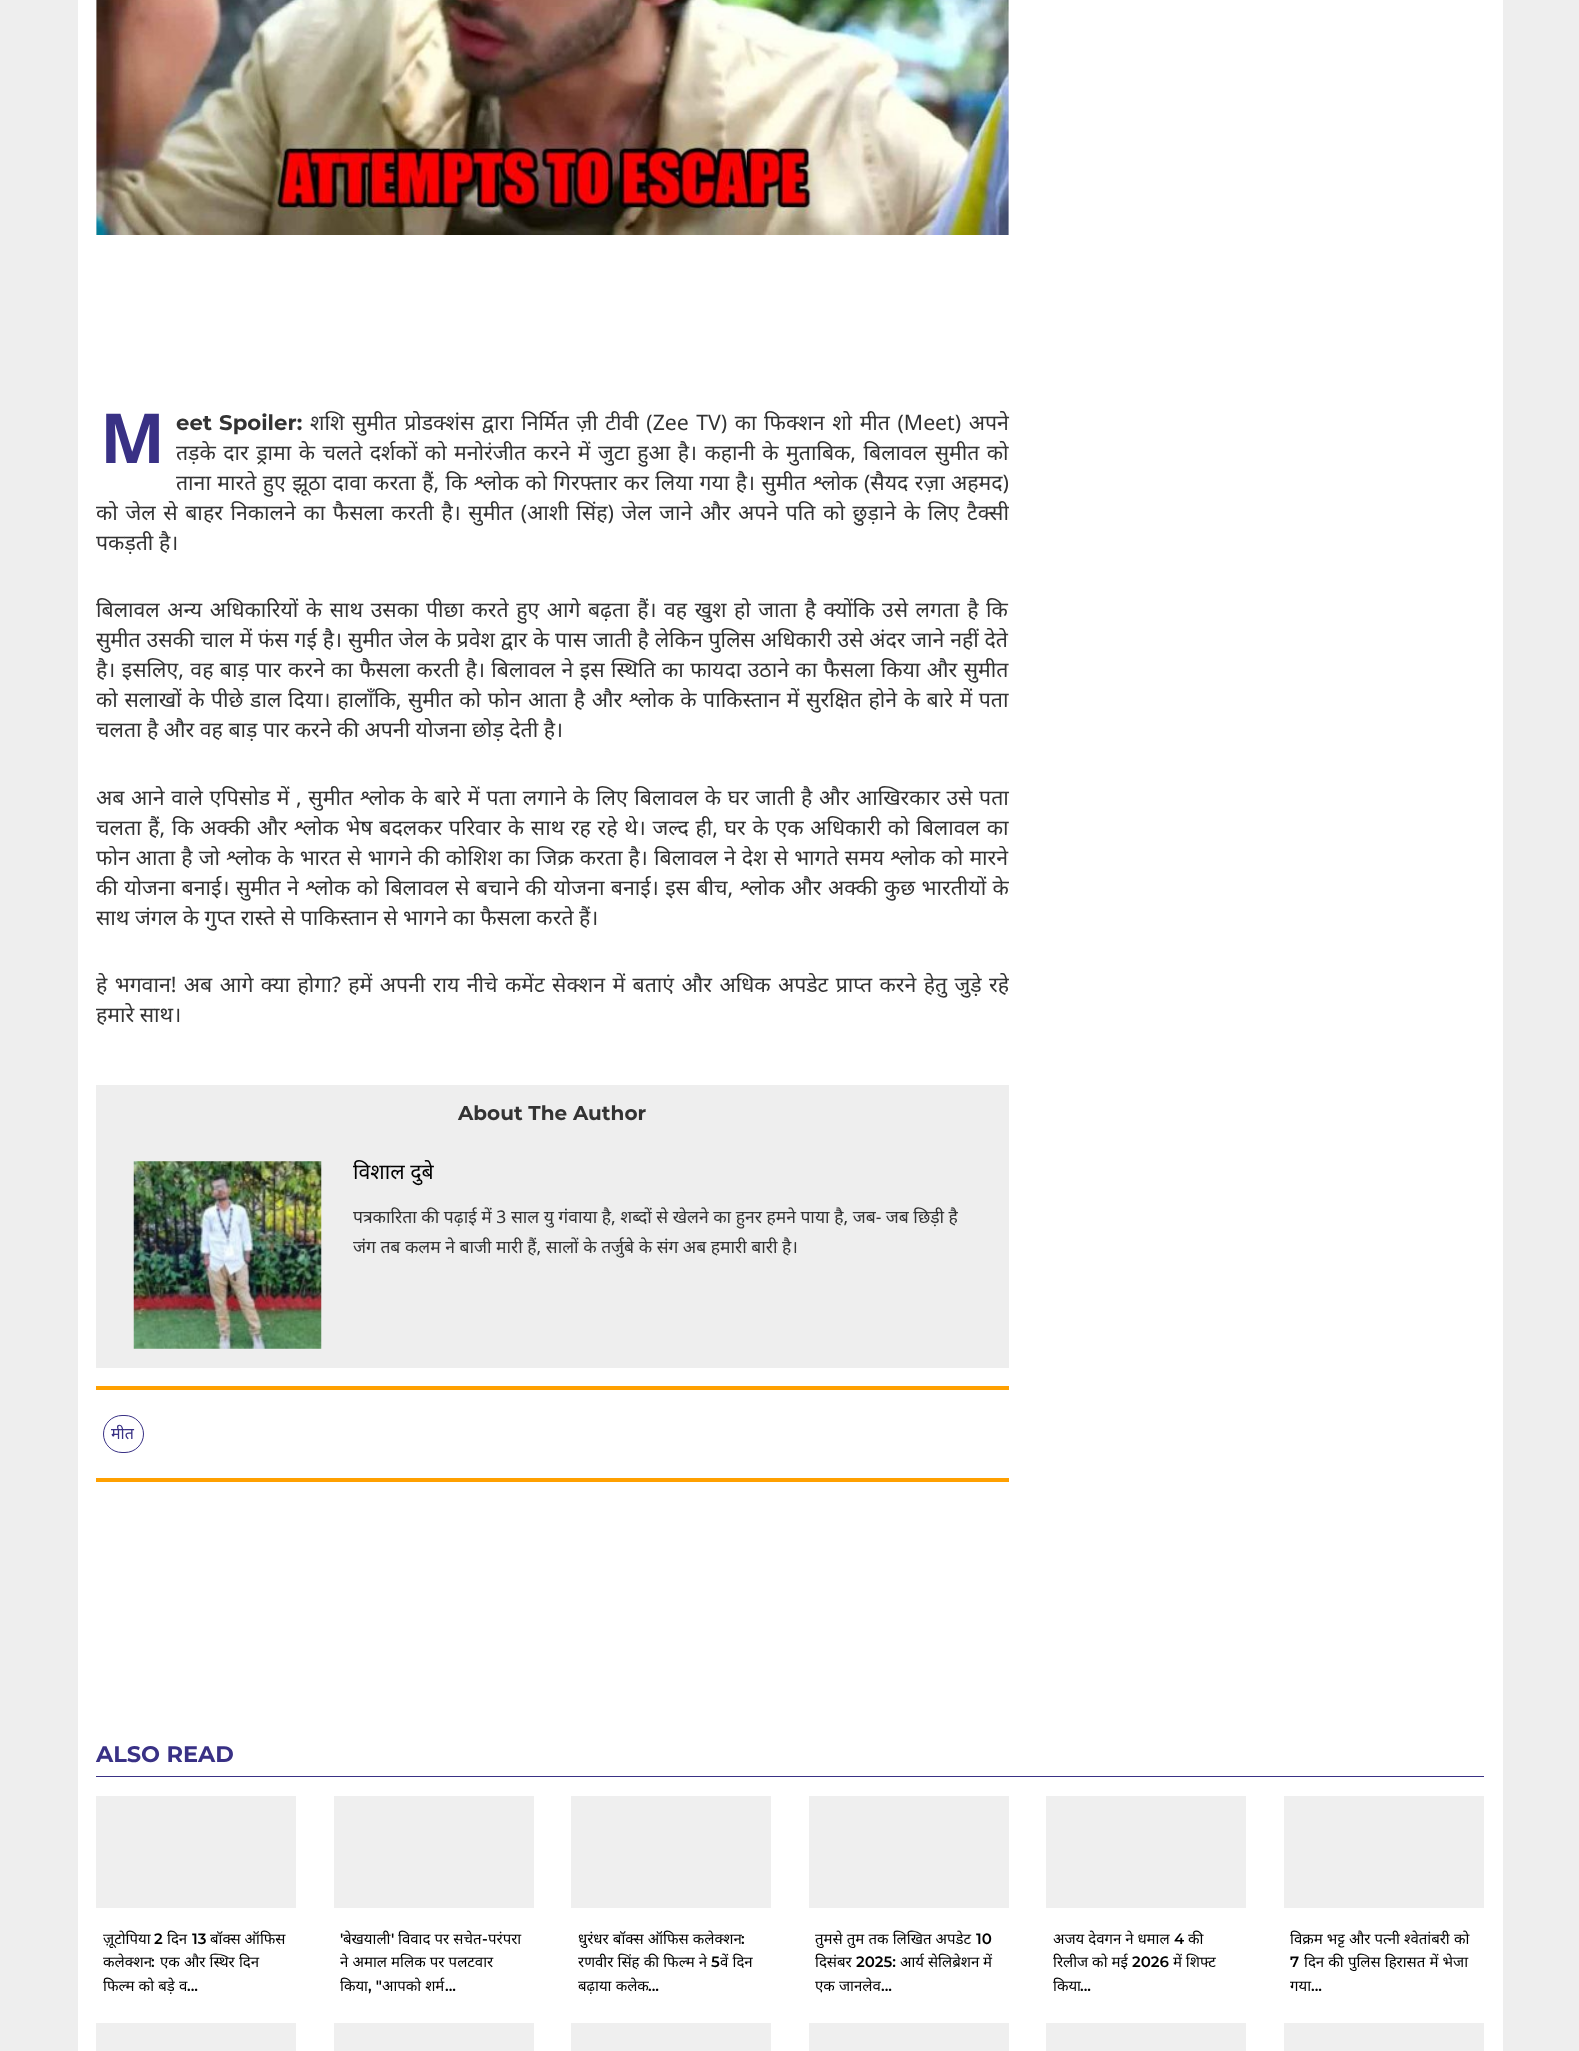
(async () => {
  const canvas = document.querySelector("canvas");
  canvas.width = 1579;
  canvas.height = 2051;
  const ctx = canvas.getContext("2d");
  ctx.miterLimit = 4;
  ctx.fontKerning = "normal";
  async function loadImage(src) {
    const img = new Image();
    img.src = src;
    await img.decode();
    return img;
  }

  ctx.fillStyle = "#eeeeee";
  ctx.fillRect(0, 0, 1579, 2051);
  ctx.fillStyle = "#ffffff";
  ctx.fillRect(78, 0, 1425, 2051);
  ctx.fillStyle = "#efefef";
  ctx.fillRect(96, 0, 913, 235);
  ctx.drawImage(await loadImage("img/1.png"), 96, 0, 913, 235);
  ctx.fillStyle = "#eeeeee";
  ctx.fillRect(96, 1085, 913, 283);
  ctx.drawImage(await loadImage("img/2.png"), 133, 1161, 189, 188);
  ctx.fillStyle = "#ffa000";
  ctx.fillRect(96, 1386, 913, 4);
  ctx.beginPath();
  ctx.roundRect(103.5, 1415.5, 40, 37, 18.5);
  ctx.strokeStyle = "#393185";
  ctx.stroke();
  for (const [x, y, w, h, color] of [
    [96, 1478, 913, 4, "#ffa000"],
    [96, 1776, 1388, 1, "#393185"],
    [96, 1796, 200, 112, "#efefef"],
    [334, 1796, 200, 112, "#efefef"],
    [571, 1796, 200, 112, "#efefef"],
    [809, 1796, 200, 112, "#efefef"],
    [1046, 1796, 200, 112, "#efefef"],
    [1284, 1796, 200, 112, "#efefef"],
    [96, 2023, 200, 28, "#efefef"],
    [334, 2023, 200, 28, "#efefef"],
    [571, 2023, 200, 28, "#efefef"],
    [809, 2023, 200, 28, "#efefef"],
    [1046, 2023, 200, 28, "#efefef"],
    [1284, 2023, 200, 28, "#efefef"],
  ]) {
    ctx.fillStyle = color;
    ctx.fillRect(x, y, w, h);
  }
  ctx.font = "bold 69px Noto Sans";
  ctx.fillStyle = "#393185";
  ctx.fillText("M", 100, 463);
  ctx.wordSpacing = "1px";
  ctx.font = "bold 21.25px Montserrat";
  ctx.fillStyle = "#333333";
  ctx.fillText("eet Spoiler:", 176, 430);
  ctx.wordSpacing = "2px";
  ctx.font = "21.25px Noto Sans";
  ctx.fillText("शशि सुमीत प्रोडक्शंस द्वारा निर्मित ज़ी टीवी (Zee TV) का फिक्शन शो मीत (Meet) अपने", 310, 430);
  ctx.wordSpacing = "1.9px";
  ctx.fillText("तड़के दार ड्रामा के चलते दर्शकों को मनोरंजीत करने में जुटा हुआ है। कहानी के मुताबिक, बिलावल सुमीत को", 176, 460);
  ctx.wordSpacing = "0.9px";
  ctx.fillText("ताना मारते हुए झूठा दावा करता हैं, कि श्लोक को गिरफ्तार कर लिया गया है। सुमीत श्लोक (सैयद रज़ा अहमद)", 176, 490);
  ctx.save();
  ctx.beginPath();
  ctx.rect(96, 408, 913, 658);
  ctx.clip();
  ctx.wordSpacing = "2.1px";
  ctx.fillText("को जेल से बाहर निकालने का फैसला करती है। सुमीत (आशी सिंह) जेल जाने और अपने पति को छुड़ाने के लिए टैक्सी", 96, 520);
  ctx.restore();
  ctx.wordSpacing = "0px";
  ctx.fillText("पकड़ती है।", 96, 550);
  ctx.wordSpacing = "2px";
  ctx.fillText("बिलावल अन्य अधिकारियों के साथ उसका पीछा करते हुए आगे बढ़ता हैं। वह खुश हो जाता है क्योंकि उसे लगता है कि", 96, 617);
  ctx.save();
  ctx.beginPath();
  ctx.rect(96, 408, 913, 658);
  ctx.clip();
  ctx.wordSpacing = "0.3px";
  ctx.fillText("सुमीत उसकी चाल में फंस गई है। सुमीत जेल के प्रवेश द्वार के पास जाती है लेकिन पुलिस अधिकारी उसे अंदर जाने नहीं देते", 96, 647);
  ctx.wordSpacing = "0.9px";
  ctx.fillText("है। इसलिए, वह बाड़ पार करने का फैसला करती है। बिलावल ने इस स्थिति का फायदा उठाने का फैसला किया और सुमीत", 96, 677);
  ctx.wordSpacing = "1.05px";
  ctx.fillText("को सलाखों के पीछे डाल दिया। हालाँकि, सुमीत को फोन आता है और श्लोक के पाकिस्तान में सुरक्षित होने के बारे में पता", 96, 707);
  ctx.restore();
  ctx.wordSpacing = "0px";
  ctx.fillText("चलता है और वह बाड़ पार करने की अपनी योजना छोड़ देती है।", 96, 737);
  ctx.wordSpacing = "1.1px";
  ctx.fillText("अब आने वाले एपिसोड में , सुमीत श्लोक के बारे में पता लगाने के लिए बिलावल के घर जाती है और आखिरकार उसे पता", 96, 805);
  ctx.wordSpacing = "1.15px";
  ctx.fillText("चलता हैं, कि अक्की और श्लोक भेष बदलकर परिवार के साथ रह रहे थे। जल्द ही, घर के एक अधिकारी को बिलावल का", 96, 835);
  ctx.save();
  ctx.beginPath();
  ctx.rect(96, 408, 913, 658);
  ctx.clip();
  ctx.wordSpacing = "0.6px";
  ctx.fillText("फोन आता है जो श्लोक के भारत से भागने की कोशिश का जिक्र करता है। बिलावल ने देश से भागते समय श्लोक को मारने", 96, 865);
  ctx.wordSpacing = "0.9px";
  ctx.fillText("की योजना बनाई। सुमीत ने श्लोक को बिलावल से बचाने की योजना बनाई। इस बीच, श्लोक और अक्की कुछ भारतीयों के", 96, 895);
  ctx.restore();
  ctx.wordSpacing = "0px";
  ctx.fillText("साथ जंगल के गुप्त रास्ते से पाकिस्तान से भागने का फैसला करते हैं।", 96, 925);
  ctx.save();
  ctx.beginPath();
  ctx.rect(96, 408, 913, 658);
  ctx.clip();
  ctx.wordSpacing = "1.9px";
  ctx.fillText("हे भगवान! अब आगे क्या होगा? हमें अपनी राय नीचे कमेंट सेक्शन में बताएं और अधिक अपडेट प्राप्त करने हेतु जुड़े रहे", 96, 992);
  ctx.restore();
  ctx.fillText("हमारे साथ।", 96, 1022);
  ctx.font = "bold 20px Montserrat";
  ctx.fillText("About The Author", 458, 1120);
  ctx.font = "21.25px Noto Sans";
  ctx.fillStyle = "#000000";
  ctx.fillText("विशाल दुबे", 353, 1179);
  ctx.font = "17.5px Noto Sans";
  ctx.fillStyle = "#333333";
  ctx.fillText("पत्रकारिता की पढ़ाई में 3 साल यु गंवाया है, शब्दों से खेलने का हुनर हमने पाया है, जब- जब छिड़ी है", 353, 1223);
  ctx.fillText("जंग तब कलम ने बाजी मारी हैं, सालों के तर्जुबे के संग अब हमारी बारी है।", 353, 1253);
  ctx.font = "16px Noto Sans";
  ctx.fillStyle = "#393185";
  ctx.fillText("मीत", 111, 1439);
  ctx.font = "bold 22.5px Montserrat";
  ctx.fillText("ALSO READ", 96, 1762);
  ctx.font = "15px Noto Sans";
  ctx.fillStyle = "#000000";
  ctx.fillText("ज़ूटोपिया", 103, 1944);
  ctx.font = "600 15px Montserrat";
  ctx.fillText("2", 154, 1944);
  ctx.font = "15px Noto Sans";
  ctx.fillText("दिन", 167, 1944);
  ctx.font = "600 15px Montserrat";
  ctx.fillText("13", 192, 1944);
  ctx.font = "15px Noto Sans";
  ctx.fillText("बॉक्स ऑफिस", 210, 1944);
  ctx.fillText("कलेक्शन", 103, 1967);
  ctx.font = "600 15px Montserrat";
  ctx.fillText(":", 151, 1967);
  ctx.wordSpacing = "0.25px";
  ctx.font = "15px Noto Sans";
  ctx.fillText("एक और स्थिर दिन", 160, 1967);
  ctx.fillText("फिल्म को बड़े व", 103, 1991);
  ctx.wordSpacing = "0px";
  ctx.font = "600 15px Montserrat";
  ctx.fillText("...", 187, 1991);
  ctx.wordSpacing = "0.25px";
  ctx.font = "15px Noto Sans";
  ctx.fillText("विवाद पर सचेत", 398, 1944);
  ctx.wordSpacing = "0px";
  ctx.fillText("परंपरा", 488, 1944);
  ctx.font = "600 15px Montserrat";
  ctx.fillText("'", 340, 1944);
  ctx.font = "15px Noto Sans";
  ctx.fillText("बेखयाली", 343, 1944);
  ctx.font = "600 15px Montserrat";
  ctx.fillText("'", 391, 1944);
  ctx.fillText("-", 482, 1944);
  ctx.wordSpacing = "0.25px";
  ctx.font = "15px Noto Sans";
  ctx.fillText("ने अमाल मलिक पर पलटवार", 340, 1967);
  ctx.wordSpacing = "0px";
  ctx.fillText("किया", 340, 1991);
  ctx.font = "600 15px Montserrat";
  ctx.fillText(", \"", 368, 1991);
  ctx.font = "15px Noto Sans";
  ctx.fillText("आपको शर्म", 382, 1991);
  ctx.font = "600 15px Montserrat";
  ctx.fillText("...", 445, 1991);
  ctx.wordSpacing = "0.25px";
  ctx.font = "15px Noto Sans";
  ctx.fillText("धुरंधर बॉक्स ऑफिस कलेक्शन", 578, 1944);
  ctx.wordSpacing = "0px";
  ctx.font = "600 15px Montserrat";
  ctx.fillText(":", 741, 1944);
  ctx.wordSpacing = "0.25px";
  ctx.font = "15px Noto Sans";
  ctx.fillText("रणवीर सिंह की फिल्म ने", 578, 1967);
  ctx.wordSpacing = "0px";
  ctx.font = "600 15px Montserrat";
  ctx.fillText("5", 711, 1967);
  ctx.wordSpacing = "0.25px";
  ctx.font = "15px Noto Sans";
  ctx.fillText("वें दिन", 720, 1967);
  ctx.fillText("बढ़ाया कलेक", 578, 1991);
  ctx.wordSpacing = "0px";
  ctx.font = "600 15px Montserrat";
  ctx.fillText("...", 648, 1991);
  ctx.wordSpacing = "0.25px";
  ctx.font = "15px Noto Sans";
  ctx.fillText("तुमसे तुम तक लिखित अपडेट", 815, 1944);
  ctx.wordSpacing = "0px";
  ctx.font = "600 15px Montserrat";
  ctx.fillText("10", 976, 1944);
  ctx.font = "15px Noto Sans";
  ctx.fillText("दिसंबर", 815, 1967);
  ctx.font = "600 15px Montserrat";
  ctx.fillText("2025:", 856, 1967);
  ctx.font = "15px Noto Sans";
  ctx.fillText("आर्य सेलिब्रेशन में", 900, 1967);
  ctx.wordSpacing = "0.25px";
  ctx.fillText("एक जानलेव", 815, 1991);
  ctx.wordSpacing = "0px";
  ctx.font = "600 15px Montserrat";
  ctx.fillText("...", 881, 1991);
  ctx.font = "15px Noto Sans";
  ctx.fillText("अजय देवगन ने धमाल", 1053, 1944);
  ctx.font = "600 15px Montserrat";
  ctx.fillText("4", 1174, 1944);
  ctx.font = "15px Noto Sans";
  ctx.fillText("की", 1188, 1944);
  ctx.fillText("रिलीज को मई", 1053, 1967);
  ctx.font = "600 15px Montserrat";
  ctx.fillText("2026", 1132, 1967);
  ctx.font = "15px Noto Sans";
  ctx.fillText("में शिफ्ट", 1173, 1967);
  ctx.fillText("किया", 1053, 1991);
  ctx.font = "600 15px Montserrat";
  ctx.fillText("...", 1080, 1991);
  ctx.wordSpacing = "0.25px";
  ctx.font = "15px Noto Sans";
  ctx.fillText("विक्रम भट्ट और पत्नी श्वेतांबरी को", 1290, 1944);
  ctx.wordSpacing = "0px";
  ctx.font = "600 15px Montserrat";
  ctx.fillText("7", 1290, 1967);
  ctx.wordSpacing = "0.25px";
  ctx.font = "15px Noto Sans";
  ctx.fillText("दिन की पुलिस हिरासत में भेजा", 1304, 1967);
  ctx.wordSpacing = "0px";
  ctx.fillText("गया", 1290, 1991);
  ctx.font = "600 15px Montserrat";
  ctx.fillText("...", 1311, 1991);
})();
